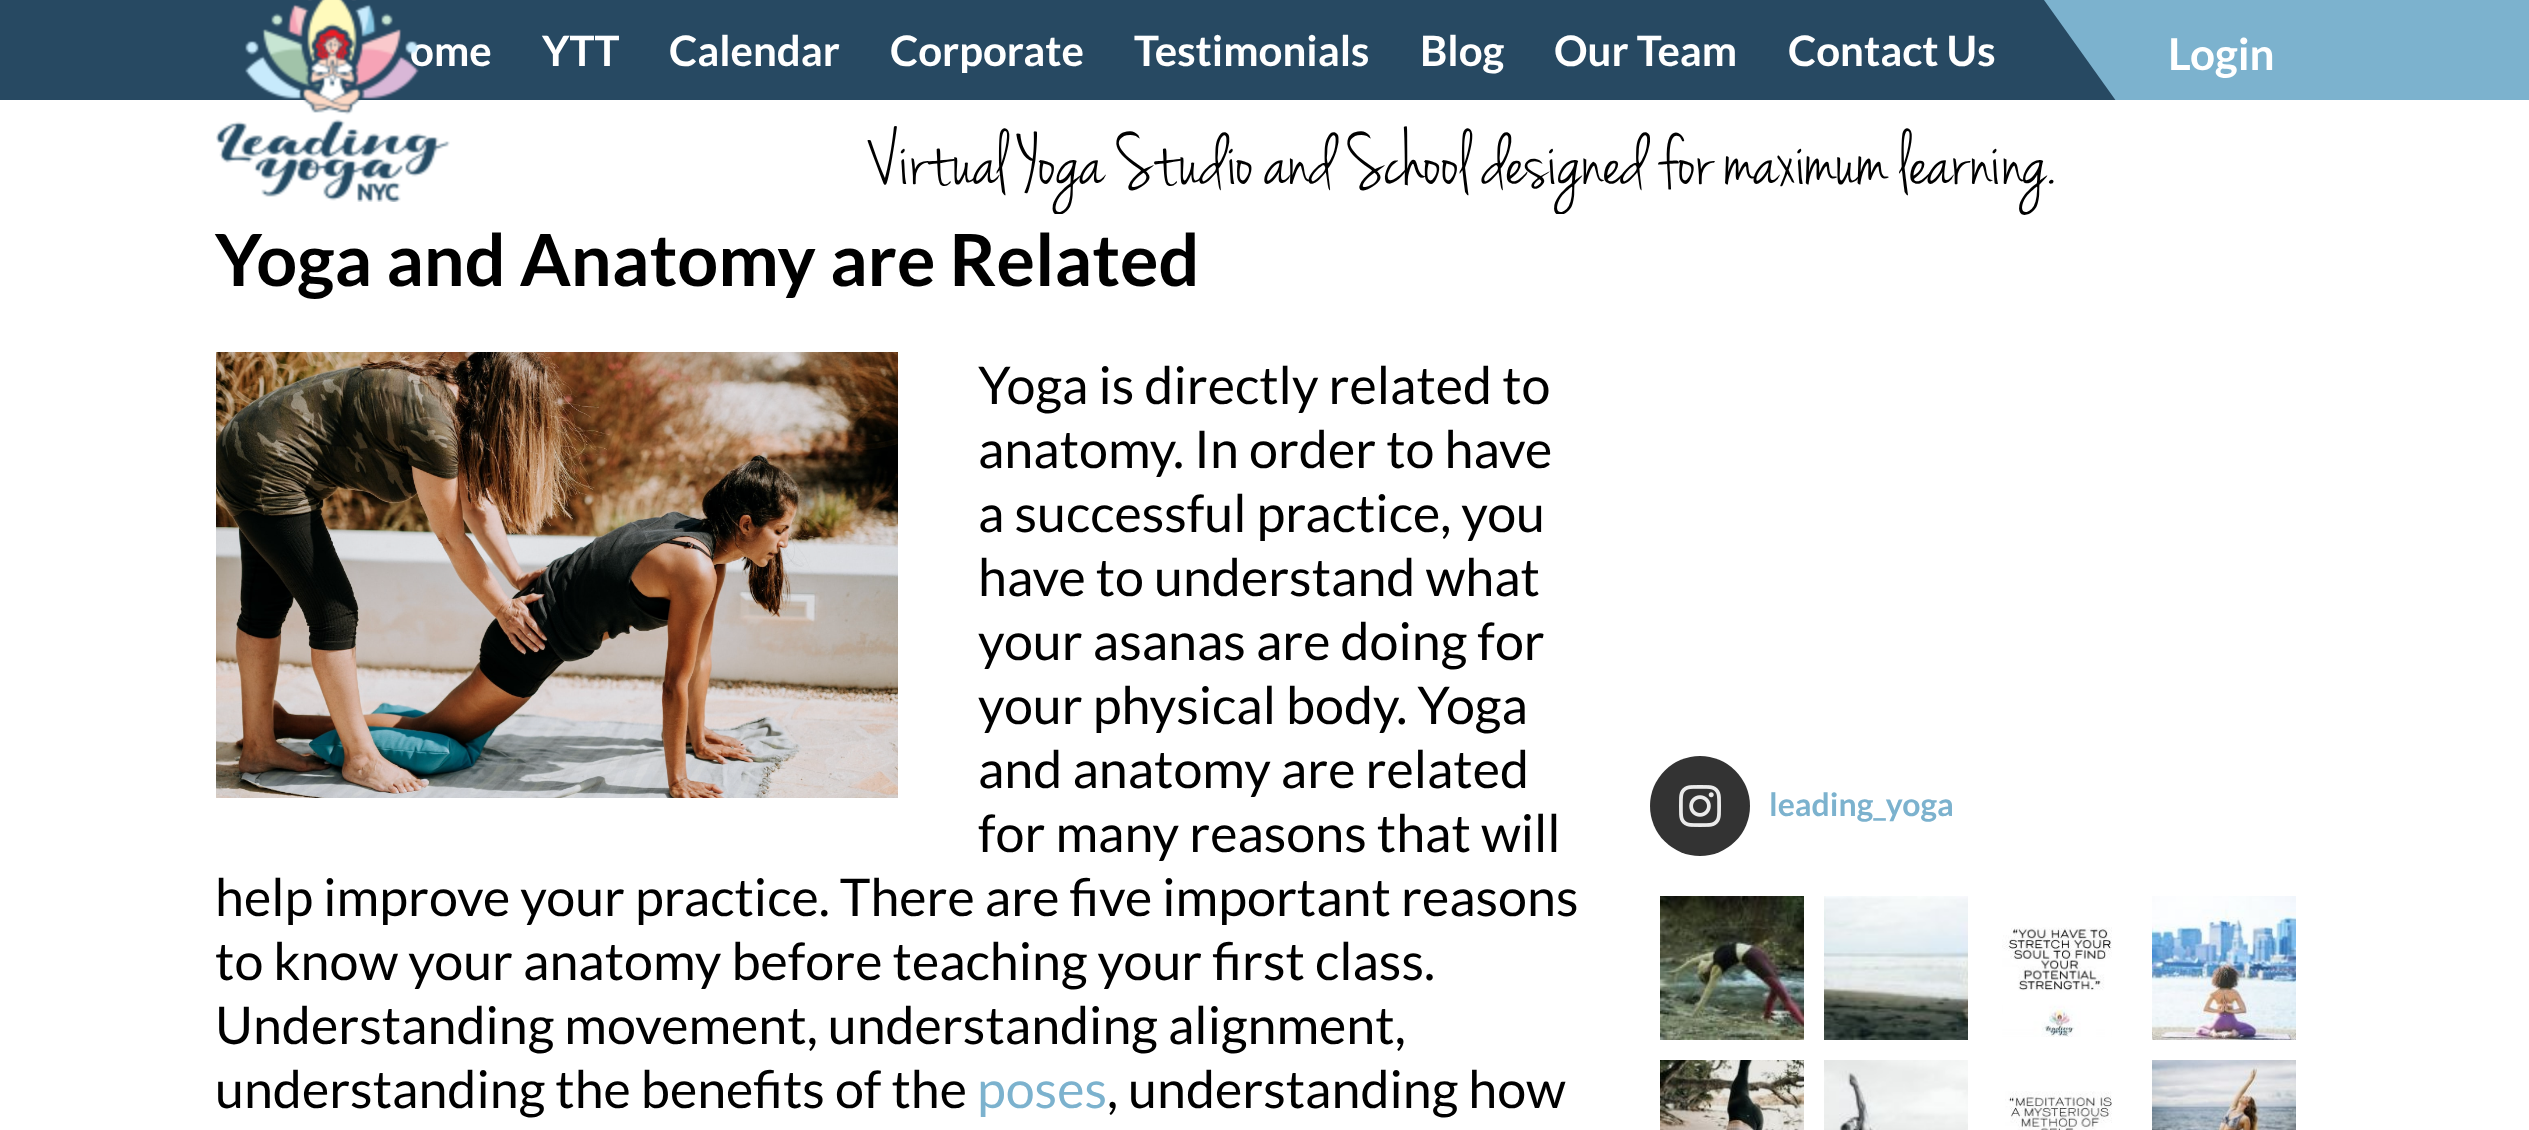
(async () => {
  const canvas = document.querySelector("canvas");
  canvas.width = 2529;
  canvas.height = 1130;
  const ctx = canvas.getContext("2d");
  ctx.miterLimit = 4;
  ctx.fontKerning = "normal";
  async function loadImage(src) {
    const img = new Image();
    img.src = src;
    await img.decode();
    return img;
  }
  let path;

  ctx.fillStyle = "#ffffff";
  ctx.fillRect(0, 0, 2529, 1130);
  ctx.fillStyle = "#274962";
  ctx.fillRect(0, 0, 2116, 100);
  ctx.fillStyle = "#7cb2ce";
  ctx.fillRect(2144, 0, 385, 100);
  ctx.save();
  ctx.beginPath();
  ctx.rect(0, 0, 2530, 100);
  ctx.clip();
  path = new Path2D("M2044 0H2144V140Z");
  ctx.fill(path);
  ctx.restore();
  ctx.drawImage(await loadImage("img/2.png"), 216, 352, 682, 446);
  ctx.fillStyle = "#333333";
  ctx.beginPath();
  ctx.arc(1700, 806, 50, 0, Math.PI * 2);
  ctx.fill();
  ctx.drawImage(await loadImage("img/3.png"), 1679, 785, 42, 42);
  ctx.drawImage(await loadImage("img/4.png"), 1660, 896, 144, 144);
  ctx.drawImage(await loadImage("img/5.png"), 1824, 896, 144, 144);
  ctx.drawImage(await loadImage("img/6.png"), 2002, 927, 110, 110);
  ctx.drawImage(await loadImage("img/7.png"), 2152, 896, 144, 144);
  ctx.drawImage(await loadImage("img/8.png"), 1660, 1060, 144, 70);
  ctx.drawImage(await loadImage("img/9.png"), 1824, 1060, 144, 70);
  ctx.drawImage(await loadImage("img/10.png"), 2005, 1091, 107, 39);
  ctx.drawImage(await loadImage("img/11.png"), 2152, 1060, 144, 70);
  ctx.font = "bold 42px Lato";
  ctx.fillStyle = "#ffffff";
  for (const [text, x, y] of [
    ["ome", 410, 66],
    ["YTT", 542, 66],
    ["Calendar", 669, 66],
    ["Corporate", 890, 66],
    ["Testimonials", 1134, 66],
    ["Blog", 1420, 66],
    ["Our Team", 1554, 66],
    ["Contact Us", 1788, 66],
  ]) {
    ctx.fillText(text, x, y);
  }
  ctx.font = "bold 44px Lato";
  ctx.fillText("Login", 2168, 70);
  ctx.drawImage(await loadImage("img/1.png"), 216, 0, 234, 202);
  ctx.font = "80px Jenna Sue";
  ctx.fillStyle = "#000000";
  ctx.fillText("Virtual Yoga Studio and School designed for maximum learning.", 872, 184);
  ctx.fillStyle = "#ffffff";
  ctx.fillRect(1055, 214, 509, 1);
  ctx.font = "bold 72px Lato";
  ctx.fillStyle = "#000000";
  ctx.fillText("Yoga and Anatomy are Related", 215, 286);
  ctx.font = "52px Lato";
  for (const [text, x, y] of [
    ["Yoga is directly related to", 978, 404],
    ["anatomy. In order to have", 978, 468],
    ["a successful practice, you", 978, 532],
    ["have to understand what", 978, 596],
    ["your asanas are doing for", 978, 660],
    ["your physical body. Yoga", 978, 724],
    ["and anatomy are related", 978, 788],
    ["for many reasons that will", 978, 852],
    ["help improve your practice. There are five important reasons", 215, 916],
    ["to know your anatomy before teaching your first class.", 215, 980],
    ["Understanding movement, understanding alignment,", 215, 1044],
    ["understanding the benefits of the", 215, 1108],
  ]) {
    ctx.fillText(text, x, y);
  }
  ctx.fillStyle = "#7cb2ce";
  ctx.fillText("poses", 977, 1108);
  ctx.fillStyle = "#000000";
  ctx.fillText(", understanding how", 1107, 1108);
  ctx.font = "bold 32px Lato";
  ctx.fillStyle = "#7cb2ce";
  ctx.fillText("leading_yoga", 1769, 816);
})();
